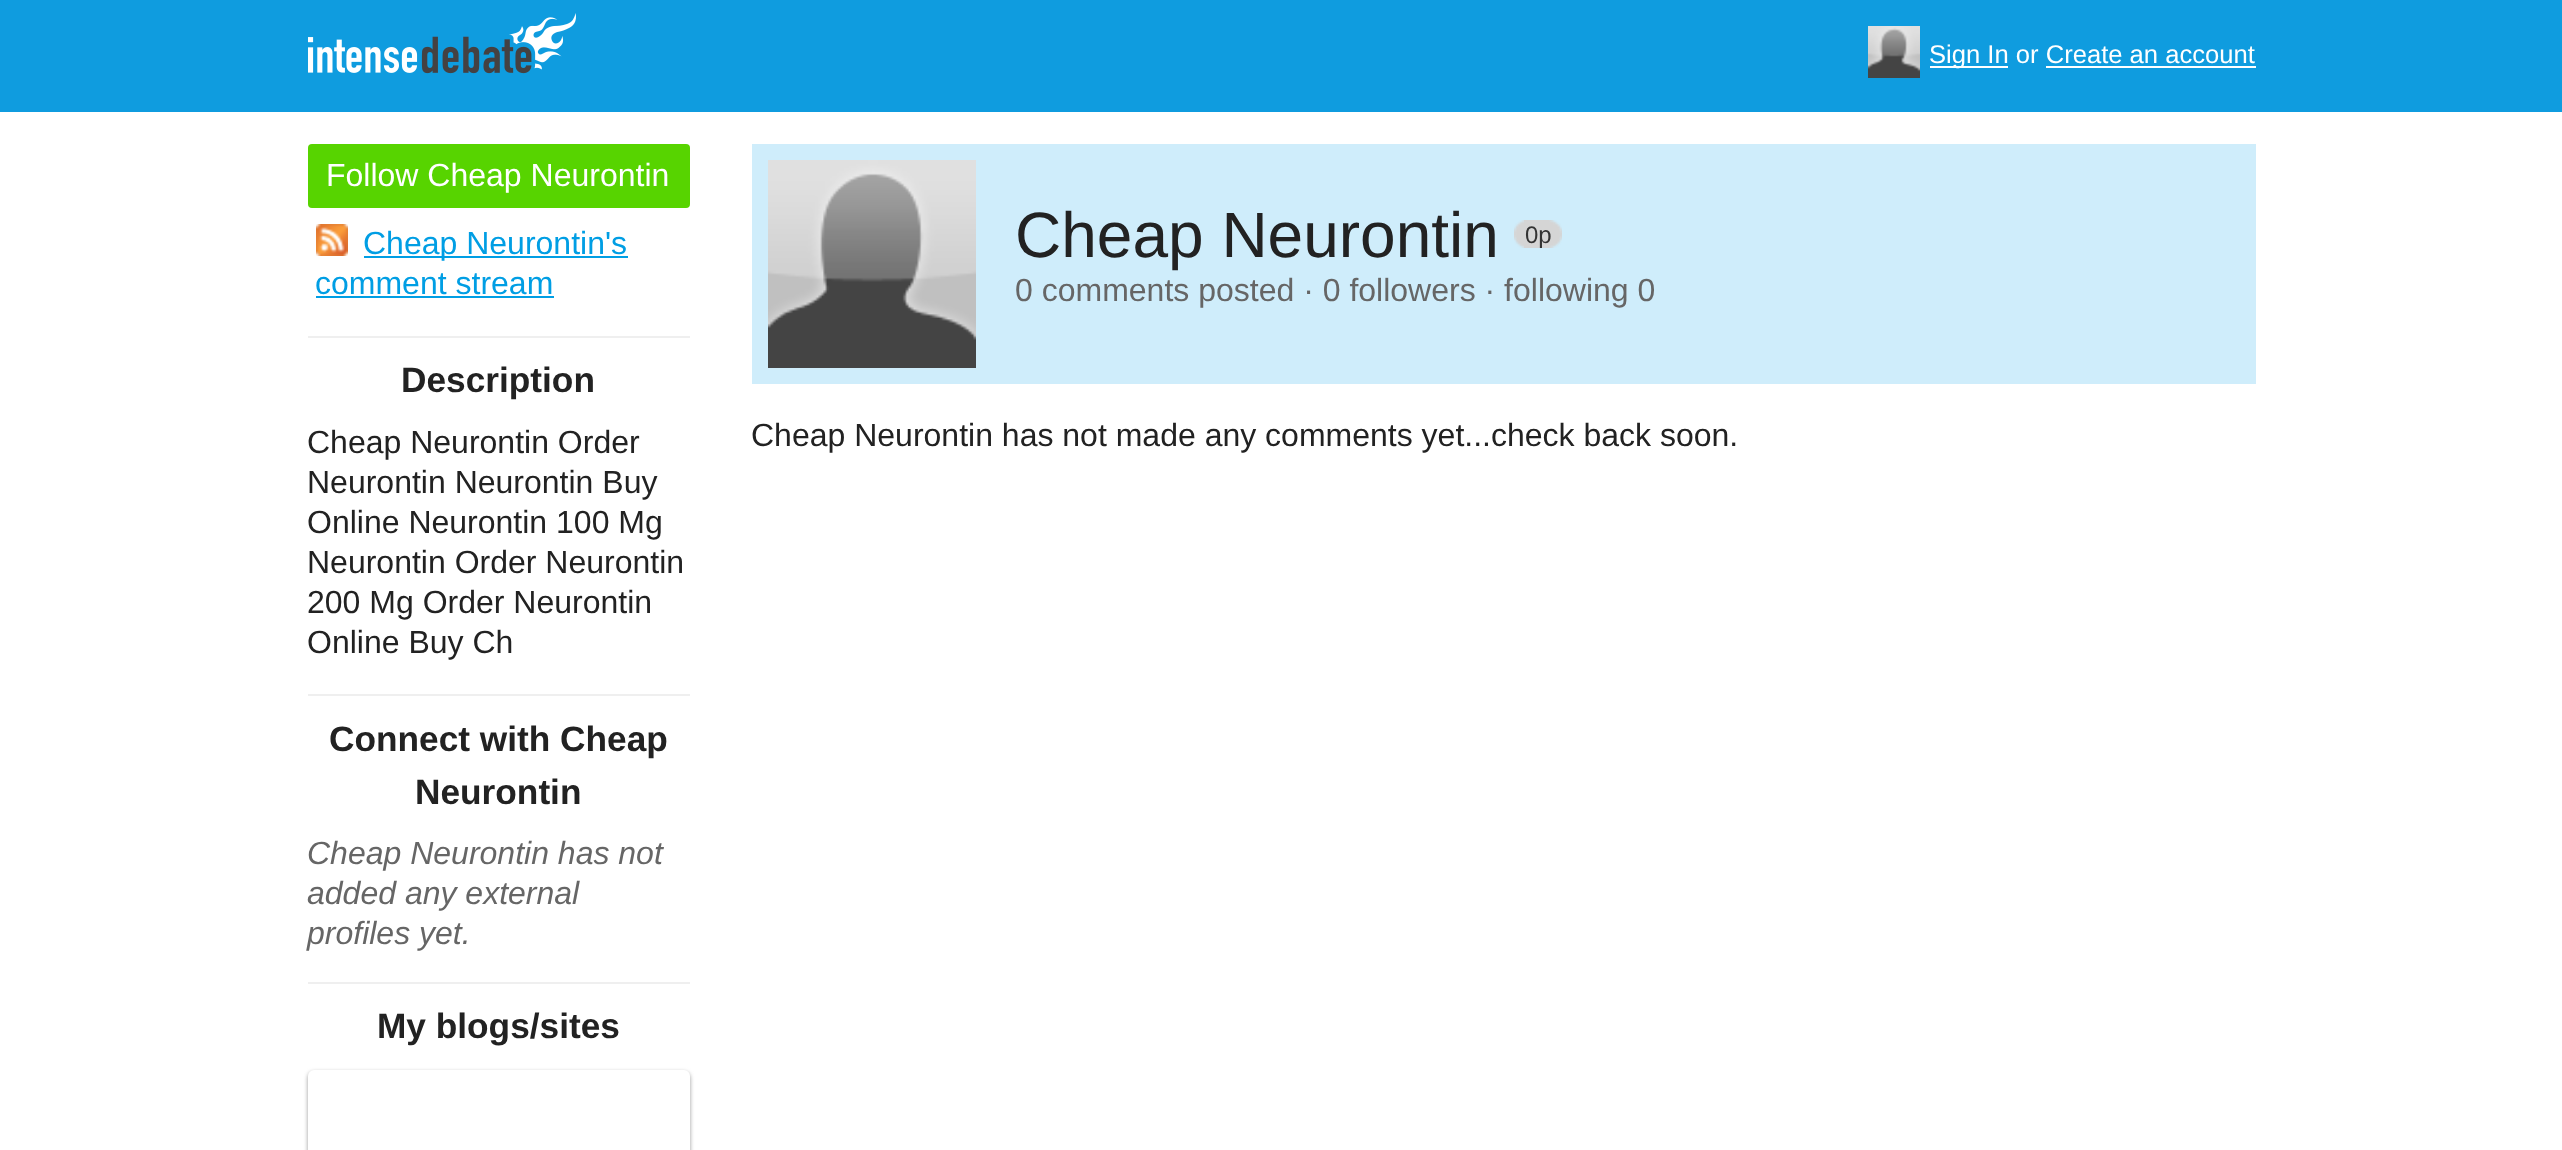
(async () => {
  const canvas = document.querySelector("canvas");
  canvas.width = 2562;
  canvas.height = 1150;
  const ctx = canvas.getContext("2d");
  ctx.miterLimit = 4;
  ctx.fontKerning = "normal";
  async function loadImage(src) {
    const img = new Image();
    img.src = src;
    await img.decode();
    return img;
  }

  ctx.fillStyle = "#ffffff";
  ctx.fillRect(0, 0, 2562, 1150);
  ctx.fillStyle = "#0f9cdf";
  ctx.fillRect(0, 0, 2562, 112);
  ctx.drawImage(await loadImage("img/1.png"), 308, 13, 268, 61);
  ctx.drawImage(await loadImage("img/2.png"), 1868, 26, 52, 52);
  ctx.fillStyle = "#ffffff";
  ctx.fillRect(1930, 66, 78, 2);
  ctx.fillRect(2046, 66, 210, 2);
  ctx.fillStyle = "#57d400";
  ctx.beginPath();
  ctx.roundRect(308, 144, 382, 64, 4);
  ctx.fill();
  ctx.drawImage(await loadImage("img/3.png"), 316, 224, 32, 32);
  for (const [x, y, w, h, color] of [
    [364, 256, 264, 2, "#009ee4"],
    [316, 296, 238, 2, "#009ee4"],
    [308, 336, 382, 2, "#efefef"],
    [308, 694, 382, 2, "#efefef"],
    [308, 982, 382, 2, "#efefef"],
  ]) {
    ctx.fillStyle = color;
    ctx.fillRect(x, y, w, h);
  }
  ctx.fillStyle = "#999999";
  ctx.filter = "blur(2px)";
  ctx.beginPath();
  ctx.roundRect(308, 1072, 382, 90, 6);
  ctx.fill();
  ctx.filter = "none";
  ctx.fillStyle = "#ffffff";
  ctx.beginPath();
  ctx.roundRect(308, 1070, 382, 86, 6);
  ctx.fill();
  ctx.fillStyle = "#cfedfb";
  ctx.fillRect(752, 144, 1504, 240);
  ctx.drawImage(await loadImage("img/4.png"), 768, 160, 208, 208);
  ctx.drawImage(await loadImage("img/5.png"), 1514, 220, 10, 28);
  ctx.drawImage(await loadImage("img/6.png"), 1524, 220, 38, 28);
  ctx.font = "25.6px Liberation Sans";
  ctx.fillStyle = "#ffffff";
  ctx.fillText("Sign In or Create an account", 1929, 63);
  ctx.font = "32px Liberation Sans";
  ctx.fillText("Follow Cheap Neurontin", 326, 186);
  ctx.fillStyle = "#009ee4";
  ctx.fillText("Cheap Neurontin's", 363, 254);
  ctx.fillText("comment stream", 315, 294);
  ctx.font = "bold 35.25px Liberation Sans";
  ctx.fillStyle = "#222222";
  ctx.fillText("Description", 401, 392);
  ctx.font = "32px Liberation Sans";
  for (const [text, x, y] of [
    ["Cheap Neurontin Order", 307, 453],
    ["Neurontin Neurontin Buy", 307, 493],
    ["Online Neurontin 100 Mg", 307, 533],
    ["Neurontin Order Neurontin", 307, 573],
    ["200 Mg Order Neurontin", 307, 613],
    ["Online Buy Ch", 307, 653],
  ]) {
    ctx.fillText(text, x, y);
  }
  ctx.font = "bold 35.25px Liberation Sans";
  ctx.fillText("Connect with Cheap", 329, 751);
  ctx.fillText("Neurontin", 415, 804);
  ctx.font = "italic 32px Liberation Sans";
  ctx.fillStyle = "#666666";
  for (const [text, x, y] of [
    ["Cheap Neurontin has not", 307, 864],
    ["added any external", 307, 904],
    ["profiles yet.", 307, 944],
  ]) {
    ctx.fillText(text, x, y);
  }
  ctx.font = "bold 35.25px Liberation Sans";
  ctx.fillStyle = "#222222";
  ctx.fillText("My blogs/sites", 377, 1038);
  ctx.font = "64px Liberation Sans";
  ctx.fillText("Cheap Neurontin", 1015, 257);
  ctx.font = "24px Liberation Sans";
  ctx.fillStyle = "#333333";
  ctx.fillText("0p", 1525, 243);
  ctx.font = "32px Liberation Sans";
  ctx.fillStyle = "#666666";
  ctx.fillText("0 comments posted · 0 followers · following 0", 1015, 301);
  ctx.fillStyle = "#222222";
  ctx.fillText("Cheap Neurontin has not made any comments yet...check back soon.", 751, 446);
})();
